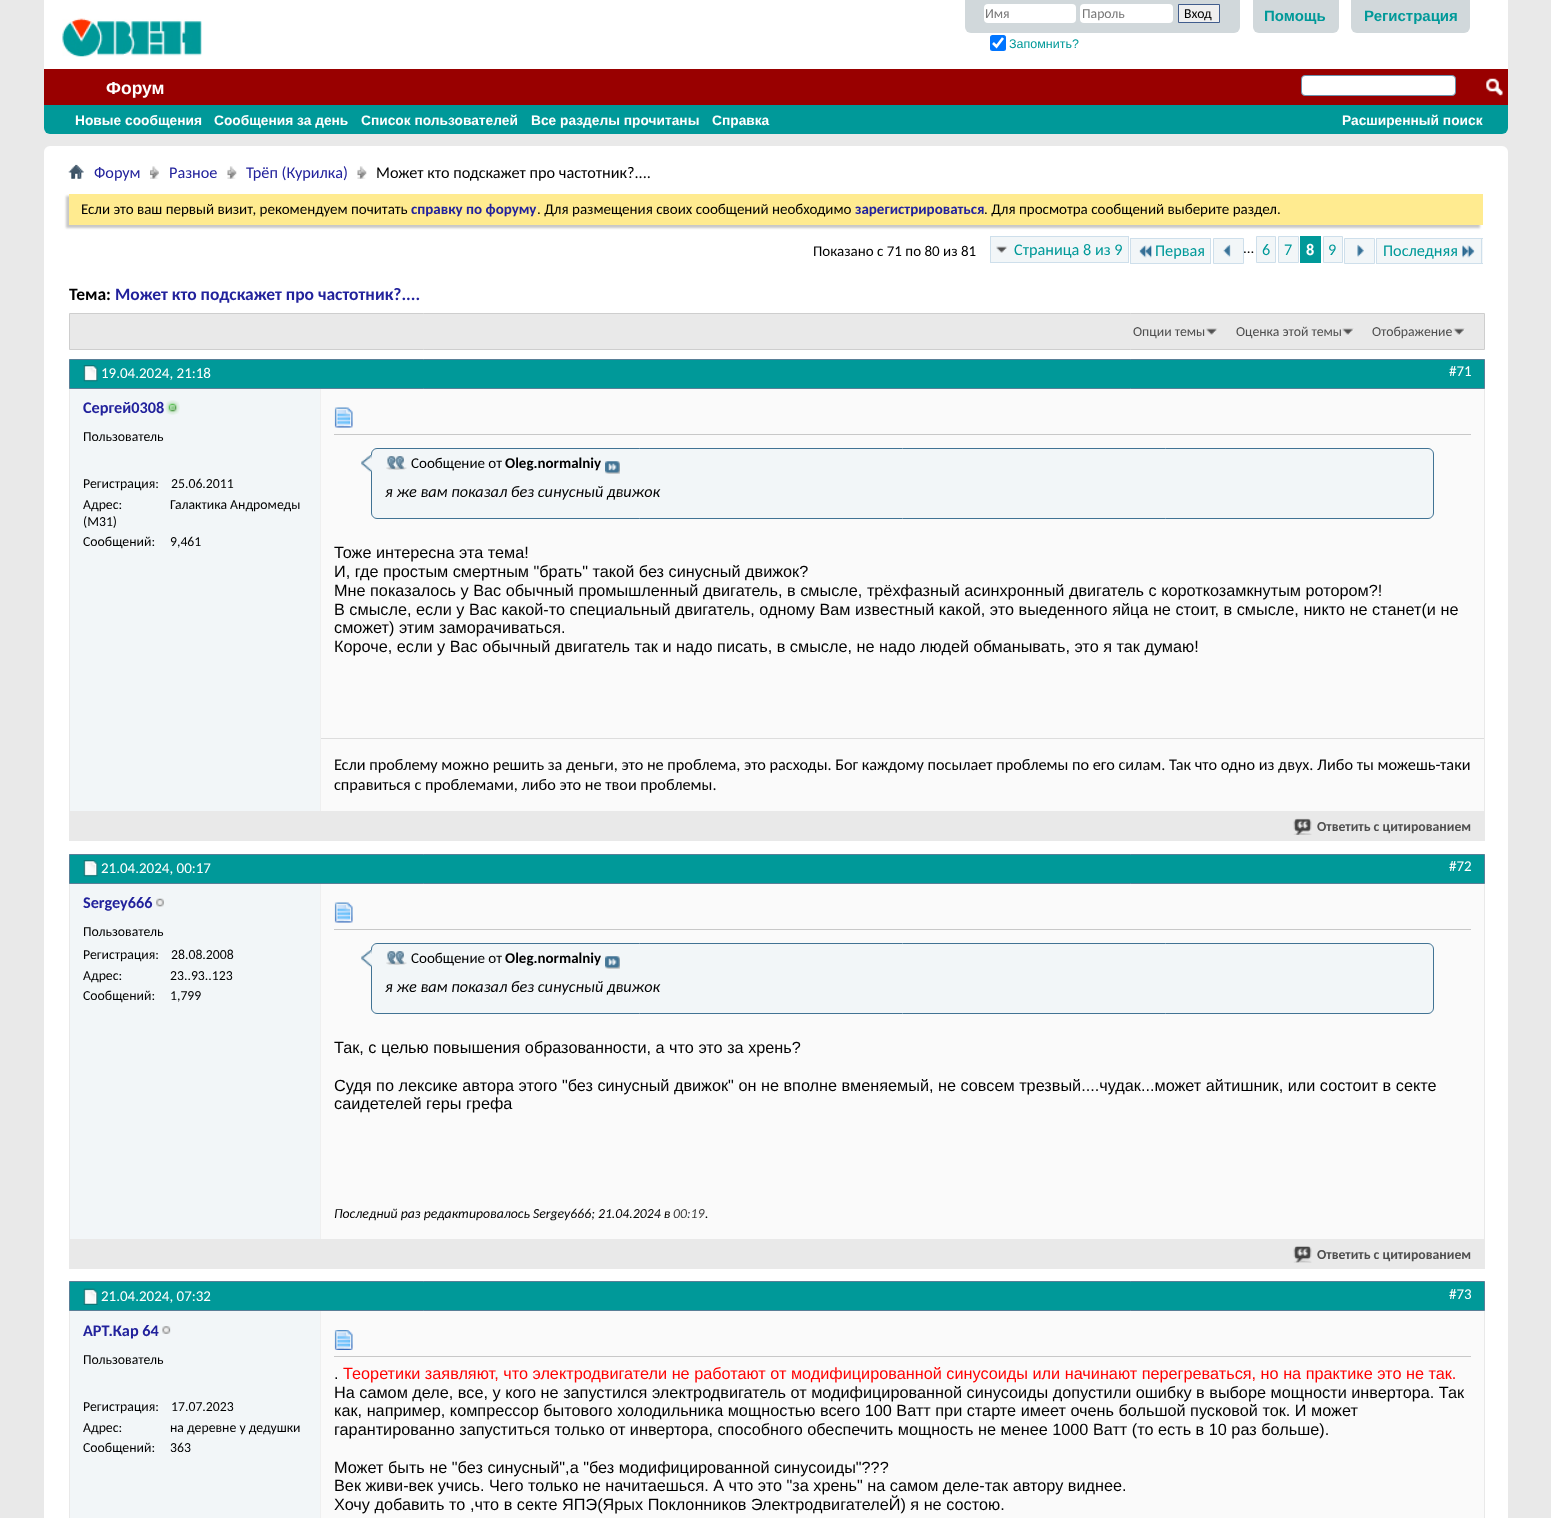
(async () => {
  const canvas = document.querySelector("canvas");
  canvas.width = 1551;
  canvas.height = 1518;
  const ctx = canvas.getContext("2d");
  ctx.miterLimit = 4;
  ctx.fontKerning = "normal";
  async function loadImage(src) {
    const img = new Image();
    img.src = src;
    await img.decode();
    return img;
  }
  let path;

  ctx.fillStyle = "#e9e9e9";
  ctx.fillRect(0, 0, 1551, 1518);
  ctx.fillStyle = "#ffffff";
  ctx.beginPath();
  ctx.roundRect(44, 0, 1464, 134, [0, 0, 6, 6]);
  ctx.fill();
  ctx.drawImage(await loadImage("img/1.png"), 62, 18, 140, 39);
  ctx.fillStyle = "#d1d8db";
  ctx.beginPath();
  ctx.roundRect(965, 0, 275, 33, [0, 0, 6, 6]);
  ctx.fill();
  ctx.fillStyle = "#ffffff";
  ctx.beginPath();
  ctx.roundRect(984, 4, 92, 19, 4);
  ctx.fill();
  ctx.beginPath();
  ctx.roundRect(1080, 4, 93, 19, 4);
  ctx.fill();
  ctx.fillStyle = "#efefef";
  ctx.beginPath();
  ctx.rect(1178.5, 4.5, 41, 18);
  ctx.fill();
  ctx.strokeStyle = "#415d8d";
  ctx.stroke();
  ctx.fillStyle = "#0075ff";
  ctx.beginPath();
  ctx.roundRect(990, 35, 16, 16, 2.5);
  ctx.fill();
  path = new Path2D("M993 43L996.5 46.5L1003 38");
  ctx.strokeStyle = "#ffffff";
  ctx.lineWidth = 2.6;
  ctx.stroke(path);
  ctx.fillStyle = "#d1d8db";
  ctx.beginPath();
  ctx.roundRect(1253, 0, 86, 33, [0, 0, 6, 6]);
  ctx.fill();
  ctx.beginPath();
  ctx.roundRect(1351, 0, 119, 33, [0, 0, 6, 6]);
  ctx.fill();
  ctx.fillStyle = "#009999";
  ctx.beginPath();
  ctx.roundRect(44, 69, 1464, 65, [0, 0, 6, 6]);
  ctx.fill();
  ctx.fillStyle = "#990000";
  ctx.fillRect(44, 69, 1464, 36);
  ctx.fillStyle = "#ffffff";
  ctx.beginPath();
  ctx.roundRect(1301.5, 75.5, 154, 20, 3.5);
  ctx.fill();
  ctx.strokeStyle = "#6b91ab";
  ctx.lineWidth = 1;
  ctx.stroke();
  ctx.drawImage(await loadImage("img/2.png"), 1486, 78, 17, 19);
  ctx.beginPath();
  ctx.roundRect(44, 146, 1464, 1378, 6);
  ctx.fill();
  ctx.drawImage(await loadImage("img/3.png"), 68, 164, 16, 15);
  ctx.drawImage(await loadImage("img/4.png"), 150, 166, 9, 13);
  ctx.drawImage(await loadImage("img/5.png"), 227, 166, 10, 13);
  ctx.drawImage(await loadImage("img/6.png"), 357, 166, 10, 13);
  ctx.fillStyle = "#c8c8c8";
  ctx.filter = "blur(1px)";
  ctx.beginPath();
  ctx.rect(66, 196, 1414, 32);
  ctx.fill();
  ctx.filter = "none";
  ctx.fillStyle = "#ffeb90";
  ctx.fillRect(69, 194, 1414, 31);
  ctx.fillStyle = "#f2f6f8";
  ctx.fillRect(991, 237, 137, 25);
  ctx.drawImage(await loadImage("img/7.png"), 996, 246, 12, 7);
  ctx.strokeStyle = "#cedfeb";
  ctx.strokeRect(990.5, 236.5, 138, 26);
  ctx.fillRect(1131, 239, 79, 24);
  ctx.drawImage(await loadImage("img/8.png"), 1139, 245, 13, 13);
  for (const [x, y, w, h, color] of [
    [1130, 238, 81, 1, "#cedfeb"],
    [1130, 263, 25, 1, "#cedfeb"],
    [1130, 238, 1, 26, "#cedfeb"],
    [1210, 238, 1, 26, "#cedfeb"],
    [1155, 263, 56, 1, "#cedfeb"],
  ]) {
    ctx.fillStyle = color;
    ctx.fillRect(x, y, w, h);
  }
  ctx.fillStyle = "#f2f6f8";
  ctx.beginPath();
  ctx.rect(1213.5, 238.5, 30, 25);
  ctx.fill();
  ctx.stroke();
  ctx.drawImage(await loadImage("img/9.png"), 1223, 244, 8, 13);
  ctx.beginPath();
  ctx.rect(1256.5, 236.5, 19, 26);
  ctx.fill();
  ctx.stroke();
  ctx.beginPath();
  ctx.rect(1278.5, 236.5, 20, 26);
  ctx.fill();
  ctx.stroke();
  ctx.fillStyle = "#009999";
  ctx.fillRect(1300, 236, 21, 27);
  ctx.fillStyle = "#f2f6f8";
  ctx.beginPath();
  ctx.rect(1323.5, 236.5, 19, 26);
  ctx.fill();
  ctx.stroke();
  ctx.beginPath();
  ctx.rect(1344.5, 238.5, 30, 25);
  ctx.fill();
  ctx.stroke();
  ctx.drawImage(await loadImage("img/10.png"), 1357, 244, 7, 13);
  for (const [x, y, w, h, color] of [
    [1377, 239, 106, 24, "#f2f6f8"],
    [1376, 238, 107, 1, "#cedfeb"],
    [1376, 263, 82, 1, "#cedfeb"],
    [1376, 238, 1, 26, "#cedfeb"],
    [1481, 238, 1, 26, "#cedfeb"],
    [1458, 263, 25, 1, "#cedfeb"],
  ]) {
    ctx.fillStyle = color;
    ctx.fillRect(x, y, w, h);
  }
  ctx.drawImage(await loadImage("img/11.png"), 1462, 245, 13, 13);
  ctx.fillStyle = "#e9e9e9";
  ctx.beginPath();
  ctx.rect(69.5, 313.5, 1415, 36);
  ctx.fill();
  ctx.strokeStyle = "#cecece";
  ctx.stroke();
  ctx.drawImage(await loadImage("img/12.png"), 1206, 328, 12, 8);
  ctx.drawImage(await loadImage("img/13.png"), 1342, 328, 12, 8);
  ctx.drawImage(await loadImage("img/14.png"), 1453, 328, 12, 8);
  ctx.strokeStyle = "#e9e9e9";
  ctx.strokeRect(69.5, 359.5, 1415, 481);
  ctx.fillStyle = "#009999";
  ctx.beginPath();
  ctx.rect(69.5, 359.5, 1415, 29);
  ctx.fill();
  ctx.strokeStyle = "#5a7f97";
  ctx.stroke();
  ctx.drawImage(await loadImage("img/15.png"), 83, 365, 15, 17);
  ctx.fillStyle = "#f2f6f8";
  ctx.fillRect(70, 389, 250, 422);
  ctx.drawImage(await loadImage("img/16.png"), 165, 400, 15, 15);
  for (const [x, y, w, h, color] of [
    [321, 389, 1163, 422, "#fafafa"],
    [320, 389, 1, 422, "#efefef"],
    [334, 434, 1137, 1, "#c8c8c8"],
  ]) {
    ctx.fillStyle = color;
    ctx.fillRect(x, y, w, h);
  }
  ctx.drawImage(await loadImage("img/17.png"), 334, 407, 19, 21);
  ctx.fillStyle = "#f2f6f8";
  ctx.beginPath();
  ctx.roundRect(371.5, 448.5, 1062, 70, 5.5);
  ctx.fill();
  ctx.strokeStyle = "#417394";
  ctx.stroke();
  ctx.drawImage(await loadImage("img/18.png"), 361, 455, 11, 17);
  ctx.drawImage(await loadImage("img/19.png"), 386, 456, 21, 14);
  ctx.drawImage(await loadImage("img/20.png"), 605, 461, 15, 13);
  ctx.fillStyle = "#dddddd";
  ctx.fillRect(321, 738, 1163, 1);
  ctx.fillStyle = "#e9e9e9";
  ctx.fillRect(70, 811, 1414, 29);
  ctx.drawImage(await loadImage("img/21.png"), 1293, 818, 19, 17);
  ctx.strokeStyle = "#e9e9e9";
  ctx.strokeRect(69.5, 854.5, 1415, 414);
  ctx.fillStyle = "#009999";
  ctx.beginPath();
  ctx.rect(69.5, 854.5, 1415, 29);
  ctx.fill();
  ctx.strokeStyle = "#5a7f97";
  ctx.stroke();
  ctx.drawImage(await loadImage("img/15.png"), 83, 860, 15, 17);
  ctx.fillStyle = "#f2f6f8";
  ctx.fillRect(70, 884, 250, 355);
  ctx.drawImage(await loadImage("img/22.png"), 156, 898, 8, 9);
  for (const [x, y, w, h, color] of [
    [321, 884, 1163, 355, "#fafafa"],
    [320, 884, 1, 355, "#efefef"],
    [334, 929, 1137, 1, "#c8c8c8"],
  ]) {
    ctx.fillStyle = color;
    ctx.fillRect(x, y, w, h);
  }
  ctx.drawImage(await loadImage("img/17.png"), 334, 902, 19, 21);
  ctx.fillStyle = "#f2f6f8";
  ctx.beginPath();
  ctx.roundRect(371.5, 943.5, 1062, 70, 5.5);
  ctx.fill();
  ctx.strokeStyle = "#417394";
  ctx.stroke();
  ctx.drawImage(await loadImage("img/18.png"), 361, 950, 11, 17);
  ctx.drawImage(await loadImage("img/19.png"), 386, 951, 21, 14);
  ctx.drawImage(await loadImage("img/20.png"), 605, 956, 15, 13);
  ctx.fillStyle = "#e9e9e9";
  ctx.fillRect(70, 1239, 1414, 29);
  ctx.drawImage(await loadImage("img/23.png"), 1293, 1246, 19, 17);
  ctx.strokeStyle = "#e9e9e9";
  ctx.strokeRect(69.5, 1281.5, 1415, 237);
  ctx.fillStyle = "#009999";
  ctx.beginPath();
  ctx.rect(69.5, 1281.5, 1415, 29);
  ctx.fill();
  ctx.strokeStyle = "#5a7f97";
  ctx.stroke();
  ctx.drawImage(await loadImage("img/24.png"), 83, 1288, 15, 17);
  ctx.fillStyle = "#f2f6f8";
  ctx.fillRect(70, 1311, 250, 207);
  ctx.drawImage(await loadImage("img/25.png"), 162, 1326, 9, 8);
  for (const [x, y, w, h, color] of [
    [321, 1311, 1163, 207, "#fafafa"],
    [320, 1311, 1, 207, "#efefef"],
    [334, 1356, 1137, 1, "#c8c8c8"],
  ]) {
    ctx.fillStyle = color;
    ctx.fillRect(x, y, w, h);
  }
  ctx.drawImage(await loadImage("img/26.png"), 334, 1330, 19, 20);
  ctx.font = "13.75px Carlito";
  ctx.fillStyle = "#777777";
  ctx.fillText("Имя", 985, 18);
  ctx.fillText("Пароль", 1082, 18);
  ctx.fillStyle = "#000000";
  ctx.fillText("Вход", 1184, 18);
  ctx.font = "12.5px Liberation Sans";
  ctx.fillStyle = "#009999";
  ctx.fillText("Запомнить?", 1009, 48);
  ctx.font = "bold 15px Liberation Sans";
  ctx.fillText("Помощь", 1264, 21);
  ctx.fillText("Регистрация", 1364, 21);
  ctx.font = "bold 17.5px Liberation Sans";
  ctx.fillStyle = "#ffffff";
  ctx.fillText("Форум", 106, 94);
  ctx.font = "bold 13.75px Liberation Sans";
  for (const [text, x, y] of [
    ["Новые сообщения", 75, 125],
    ["Сообщения за день", 214, 125],
    ["Список пользователей", 361, 125],
    ["Все разделы прочитаны", 531, 125],
    ["Справка", 712, 125],
    ["Расширенный поиск", 1342, 125],
  ]) {
    ctx.fillText(text, x, y);
  }
  ctx.font = "16.25px Carlito";
  ctx.fillStyle = "#22229c";
  for (const [text, x, y] of [
    ["Форум", 94, 178],
    ["Разное", 169, 178],
    ["Трёп (Курилка)", 246, 178],
  ]) {
    ctx.fillText(text, x, y);
  }
  ctx.fillStyle = "#000000";
  ctx.fillText("Может кто подскажет про частотник?....", 376, 178);
  ctx.font = "15px Carlito";
  ctx.fillText("Если это ваш первый визит, рекомендуем почитать", 81, 214);
  ctx.font = "bold 15px Carlito";
  ctx.fillStyle = "#22229c";
  ctx.fillText("справку по форуму", 411, 214);
  ctx.font = "15px Carlito";
  ctx.fillStyle = "#000000";
  ctx.fillText(". Для размещения своих сообщений необходимо", 537, 214);
  ctx.font = "bold 15px Carlito";
  ctx.fillStyle = "#22229c";
  ctx.fillText("зарегистрироваться", 855, 214);
  ctx.font = "15px Carlito";
  ctx.fillStyle = "#000000";
  ctx.fillText(". Для просмотра сообщений выберите раздел.", 984, 214);
  ctx.fillText("Показано с 71 по 80 из 81", 813, 256);
  ctx.font = "16.25px Carlito";
  ctx.fillStyle = "#009999";
  ctx.fillText("Страница 8 из 9", 1014, 255);
  ctx.fillText("Первая", 1155, 256);
  ctx.font = "15px Carlito";
  ctx.fillStyle = "#000000";
  ctx.fillText("...", 1243, 253);
  ctx.font = "16.25px Carlito";
  ctx.fillStyle = "#009999";
  ctx.fillText("6", 1262, 255);
  ctx.fillText("7", 1284, 255);
  ctx.font = "bold 16.25px Carlito";
  ctx.fillStyle = "#ffffff";
  ctx.fillText("8", 1306, 255);
  ctx.font = "16.25px Carlito";
  ctx.fillStyle = "#009999";
  ctx.fillText("9", 1328, 255);
  ctx.fillText("Последняя", 1383, 256);
  ctx.font = "bold 17.5px Carlito";
  ctx.fillStyle = "#000000";
  ctx.fillText("Тема:", 69, 300);
  ctx.fillStyle = "#22229c";
  ctx.fillText("Может кто подскажет про частотник?....", 115, 300);
  ctx.font = "13.75px Carlito";
  ctx.fillStyle = "#4e4e4e";
  for (const [text, x, y] of [
    ["Опции темы", 1133, 336],
    ["Оценка этой темы", 1236, 336],
    ["Отображение", 1372, 336],
  ]) {
    ctx.fillText(text, x, y);
  }
  ctx.font = "15px Carlito";
  ctx.fillStyle = "#ffffff";
  ctx.fillText("19.04.2024, 21:18", 101, 378);
  ctx.fillText("#71", 1449, 376);
  ctx.font = "bold 16.25px Carlito";
  ctx.fillStyle = "#22229c";
  ctx.fillText("Сергей0308", 83, 413);
  ctx.font = "13.75px Carlito";
  ctx.fillStyle = "#000000";
  for (const [text, x, y] of [
    ["Пользователь", 83, 441],
    ["Регистрация:", 83, 488],
    ["25.06.2011", 171, 488],
    ["Адрес:", 83, 509],
    ["Галактика Андромеды", 170, 509],
    ["(M31)", 83, 526],
    ["Сообщений:", 83, 546],
    ["9,461", 170, 546],
  ]) {
    ctx.fillText(text, x, y);
  }
  ctx.font = "15px Carlito";
  ctx.fillText("Сообщение от", 411, 468);
  ctx.font = "bold 15px Carlito";
  ctx.fillText("Oleg.normalniy", 505, 468);
  ctx.font = "italic 16.25px Carlito";
  ctx.fillText("я же вам показал без синусный движок", 385, 497);
  ctx.font = "16.25px Liberation Sans";
  for (const [text, x, y] of [
    ["Тоже интересна эта тема!", 334, 558],
    ["И, где простым смертным \"брать\" такой без синусный движок?", 334, 577],
    ["Мне показалось у Вас обычный промышленный двигатель, в смысле, трёхфазный асинхронный двигатель с короткозамкнутым ротором?!", 334, 596],
    ["В смысле, если у Вас какой-то специальный двигатель, одному Вам известный какой, это выеденного яйца не стоит, в смысле, никто не станет(и не", 334, 615],
    ["сможет) этим заморачиваться.", 334, 633],
    ["Короче, если у Вас обычный двигатель так и надо писать, в смысле, не надо людей обманывать, это я так думаю!", 334, 652],
  ]) {
    ctx.fillText(text, x, y);
  }
  ctx.font = "16.25px Carlito";
  ctx.fillText("Если проблему можно решить за деньги, это не проблема, это расходы. Бог каждому посылает проблемы по его силам. Так что одно из двух. Либо ты можешь-таки", 334, 770);
  ctx.fillText("справиться с проблемами, либо это не твои проблемы.", 334, 790);
  ctx.font = "bold 13.75px Carlito";
  ctx.fillStyle = "#4e4e4e";
  ctx.fillText("Ответить с цитированием", 1317, 831);
  ctx.font = "15px Carlito";
  ctx.fillStyle = "#ffffff";
  ctx.fillText("21.04.2024, 00:17", 101, 873);
  ctx.fillText("#72", 1449, 871);
  ctx.font = "bold 16.25px Carlito";
  ctx.fillStyle = "#22229c";
  ctx.fillText("Sergey666", 83, 908);
  ctx.font = "13.75px Carlito";
  ctx.fillStyle = "#000000";
  for (const [text, x, y] of [
    ["Пользователь", 83, 936],
    ["Регистрация:", 83, 959],
    ["28.08.2008", 171, 959],
    ["Адрес:", 83, 980],
    ["23..93..123", 170, 980],
    ["Сообщений:", 83, 1000],
    ["1,799", 170, 1000],
  ]) {
    ctx.fillText(text, x, y);
  }
  ctx.font = "15px Carlito";
  ctx.fillText("Сообщение от", 411, 963);
  ctx.font = "bold 15px Carlito";
  ctx.fillText("Oleg.normalniy", 505, 963);
  ctx.font = "italic 16.25px Carlito";
  ctx.fillText("я же вам показал без синусный движок", 385, 992);
  ctx.font = "16.25px Liberation Sans";
  for (const [text, x, y] of [
    ["Так, с целью повышения образованности, а что это за хрень?", 334, 1053],
    ["Судя по лексике автора этого \"без синусный движок\" он не вполне вменяемый, не совсем трезвый....чудак...может айтишник, или состоит в секте", 334, 1091],
    ["саидетелей геры грефа", 334, 1109],
  ]) {
    ctx.fillText(text, x, y);
  }
  ctx.font = "italic 13.75px Carlito";
  ctx.fillText("Последний раз редактировалось Sergey666; 21.04.2024 в", 334, 1218);
  ctx.fillStyle = "#3e3e3e";
  ctx.fillText("00:19", 673, 1218);
  ctx.fillStyle = "#000000";
  ctx.fillText(".", 705, 1218);
  ctx.font = "bold 13.75px Carlito";
  ctx.fillStyle = "#4e4e4e";
  ctx.fillText("Ответить с цитированием", 1317, 1259);
  ctx.font = "15px Carlito";
  ctx.fillStyle = "#ffffff";
  ctx.fillText("21.04.2024, 07:32", 101, 1301);
  ctx.fillText("#73", 1449, 1299);
  ctx.font = "bold 16.25px Carlito";
  ctx.fillStyle = "#22229c";
  ctx.fillText("АРТ.Кар 64", 83, 1336);
  ctx.font = "13.75px Carlito";
  ctx.fillStyle = "#000000";
  for (const [text, x, y] of [
    ["Пользователь", 83, 1364],
    ["Регистрация:", 83, 1411],
    ["17.07.2023", 171, 1411],
    ["Адрес:", 83, 1432],
    ["на деревне у дедушки", 170, 1432],
    ["Сообщений:", 83, 1452],
    ["363", 170, 1452],
  ]) {
    ctx.fillText(text, x, y);
  }
  ctx.font = "16.25px Liberation Sans";
  ctx.fillText(".", 334, 1379);
  ctx.fillStyle = "#ff0000";
  ctx.fillText("Теоретики заявляют, что электродвигатели не работают от модифицированной синусоиды или начинают перегреваться, но на практике это не так.", 343, 1379);
  ctx.fillStyle = "#000000";
  for (const [text, x, y] of [
    ["На самом деле, все, у кого не запустился электродвигатель от модифицированной синусоиды допустили ошибку в выборе мощности инвертора. Так", 334, 1398],
    ["как, например, компрессор бытового холодильника мощностью всего 100 Ватт при старте имеет очень большой пусковой ток. И может", 334, 1416],
    ["гарантированно запуститься только от инвертора, способного обеспечить мощность не менее 1000 Ватт (то есть в 10 раз больше).", 334, 1435],
    ["Может быть не \"без синусный\",а \"без модифицированной синусоиды\"???", 334, 1473],
    ["Век живи-век учись. Чего только не начитаешься. А что это \"за хрень\" на самом деле-так автору виднее.", 334, 1491],
    ["Хочу добавить то ,что в секте ЯПЭ(Ярых Поклонников ЭлектродвигателеЙ) я не состою.", 334, 1510],
  ]) {
    ctx.fillText(text, x, y);
  }
})();
